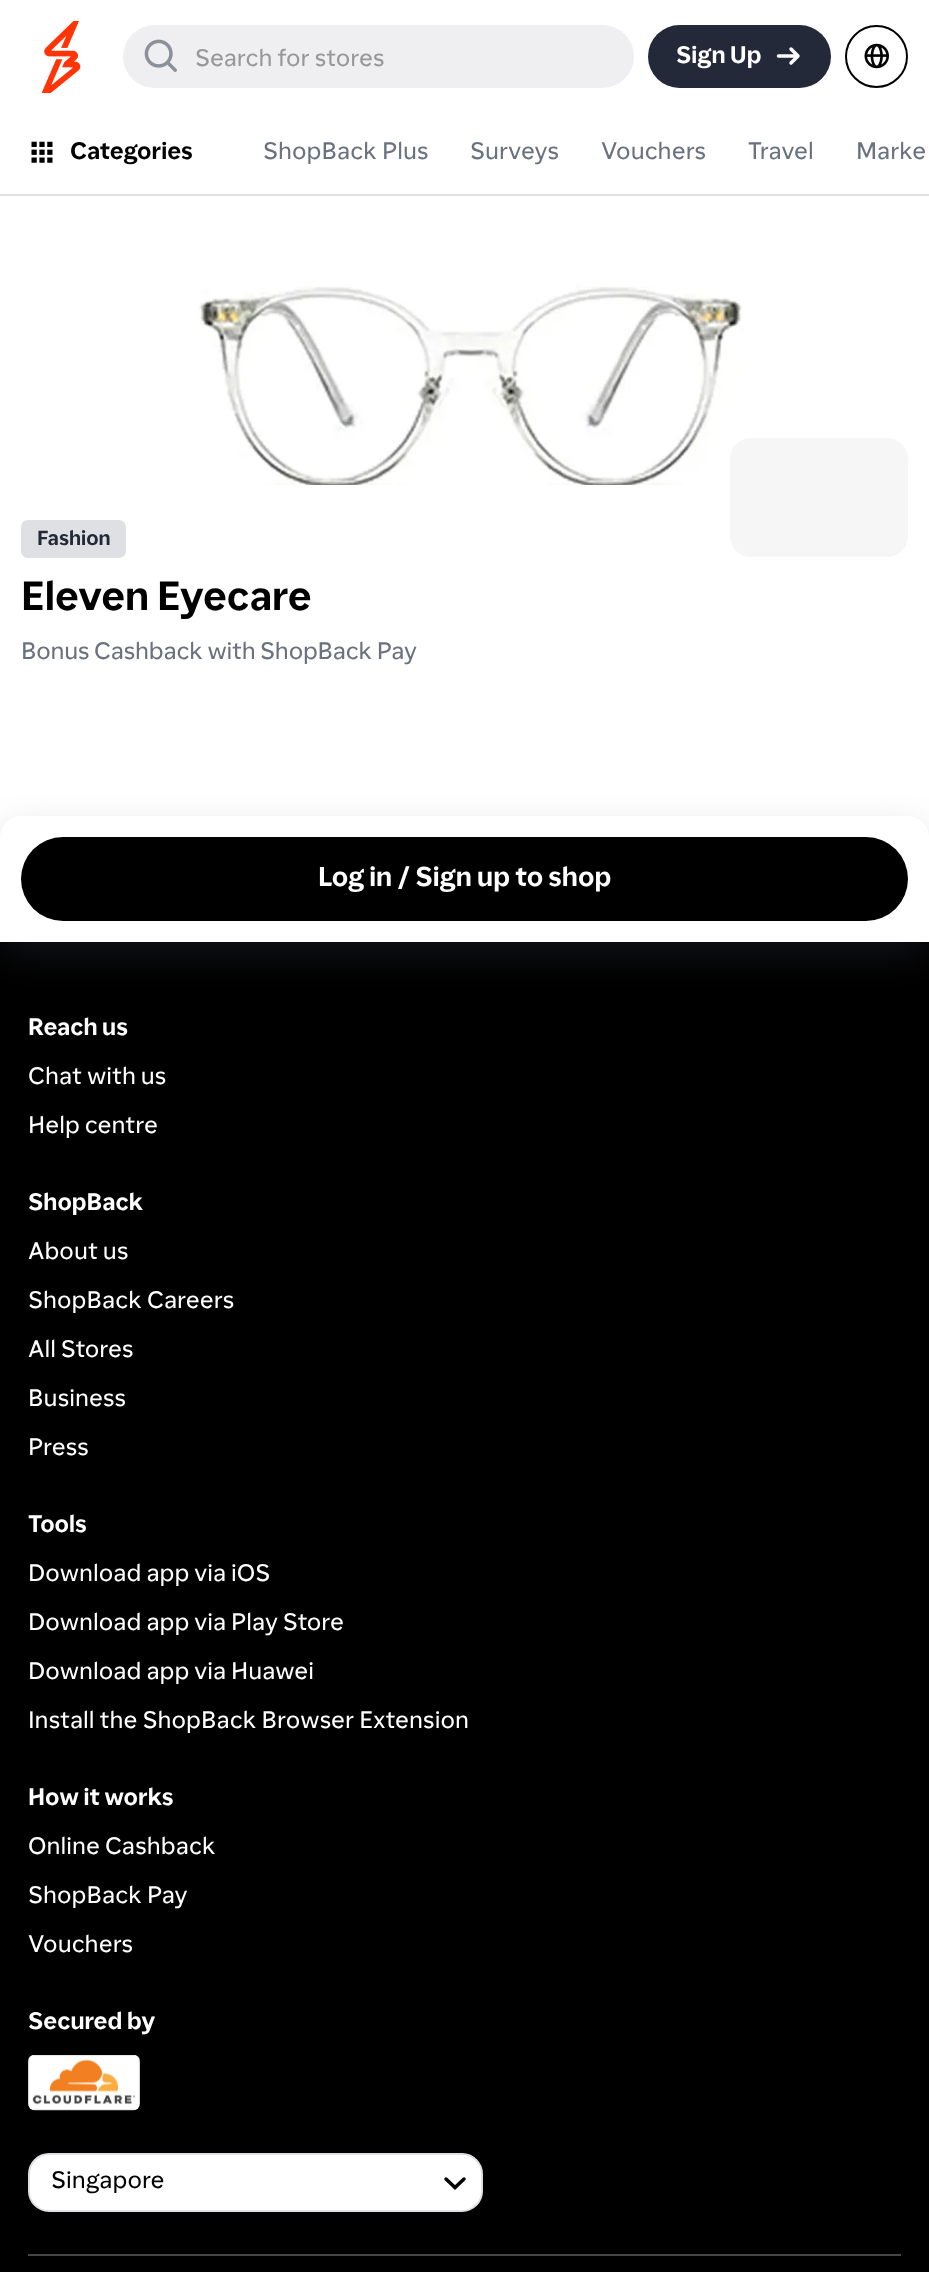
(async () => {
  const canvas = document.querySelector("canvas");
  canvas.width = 929;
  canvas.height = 2272;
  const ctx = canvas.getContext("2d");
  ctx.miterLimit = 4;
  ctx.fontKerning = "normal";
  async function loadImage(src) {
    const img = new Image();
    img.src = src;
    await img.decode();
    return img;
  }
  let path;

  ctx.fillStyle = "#ffffff";
  ctx.fillRect(0, 0, 929, 2272);
  ctx.drawImage(await loadImage("img/1.png"), 42, 21, 39, 72);
  ctx.fillStyle = "#efeff1";
  ctx.beginPath();
  ctx.roundRect(123, 25, 511, 63, 31.5);
  ctx.fill();
  ctx.drawImage(await loadImage("img/2.png"), 144, 39, 33, 33);
  ctx.fillStyle = "#232938";
  ctx.beginPath();
  ctx.roundRect(648, 25, 183, 63, 31.5);
  ctx.fill();
  path = new Path2D("M791 49L798 56M798 56L791 63M798 56H778.5");
  ctx.strokeStyle = "#ffffff";
  ctx.lineWidth = 3.5;
  ctx.lineCap = "round";
  ctx.stroke(path);
  ctx.beginPath();
  ctx.arc(876.5, 56.5, 30.5, 0, Math.PI * 2);
  ctx.strokeStyle = "#000000";
  ctx.lineWidth = 2;
  ctx.stroke();
  ctx.drawImage(await loadImage("img/3.png"), 864, 43, 25, 26);
  ctx.fillStyle = "#dee0e3";
  ctx.fillRect(0, 194, 929, 2);
  ctx.drawImage(await loadImage("img/4.png"), 31, 141, 22, 22);
  ctx.drawImage(await loadImage("img/5.png"), 0, 196, 929, 317);
  ctx.fillStyle = "#ffffff";
  ctx.beginPath();
  ctx.roundRect(0, 485, 929, 185, [28, 28, 0, 0]);
  ctx.fill();
  ctx.fillStyle = "#f6f6f7";
  ctx.beginPath();
  ctx.roundRect(730, 438, 178, 119, 21);
  ctx.fill();
  ctx.fillStyle = "#dee0e3";
  ctx.beginPath();
  ctx.roundRect(22, 521, 103, 36, 6);
  ctx.fill();
  ctx.strokeStyle = "#dee0e3";
  ctx.stroke();
  ctx.fillStyle = "#000000";
  ctx.fillRect(0, 942, 929, 1330);
  ctx.fillStyle = "rgba(64, 72, 90, 0.24)";
  ctx.filter = "blur(17.5px)";
  ctx.beginPath();
  ctx.roundRect(0, 830, 929, 126, 21);
  ctx.fill();
  ctx.filter = "none";
  ctx.fillStyle = "#ffffff";
  ctx.beginPath();
  ctx.roundRect(0, 816, 929, 126, [21, 21, 0, 0]);
  ctx.fill();
  ctx.fillStyle = "#000000";
  ctx.beginPath();
  ctx.roundRect(21, 837, 887, 84, 42);
  ctx.fill();
  ctx.drawImage(await loadImage("img/6.png"), 28, 2055, 112, 56);
  ctx.fillStyle = "#ffffff";
  ctx.beginPath();
  ctx.roundRect(29, 2154, 453, 57, 20);
  ctx.fill();
  ctx.stroke();
  path = new Path2D("M446 2179L455 2187.5L464 2179");
  ctx.strokeStyle = "#000000";
  ctx.lineWidth = 3.5;
  ctx.stroke(path);
  ctx.fillStyle = "#474747";
  ctx.fillRect(28, 2254, 873, 2);
  ctx.font = "24.5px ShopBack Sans";
  ctx.fillStyle = "#989899";
  ctx.fillText("Search for stores", 195, 66);
  ctx.font = "bold 24.5px ShopBack Sans";
  ctx.fillStyle = "#ffffff";
  ctx.fillText("Sign Up", 676, 63);
  ctx.fillStyle = "#000000";
  ctx.fillText("Categories", 70, 159);
  ctx.font = "24.5px ShopBack Sans";
  ctx.fillStyle = "#6a717f";
  for (const [text, x, y] of [
    ["ShopBack Plus", 263, 159],
    ["Surveys", 470, 159],
    ["Vouchers", 601, 159],
    ["Travel", 748, 159],
    ["Marke", 856, 159],
  ]) {
    ctx.fillText(text, x, y);
  }
  ctx.font = "bold 21px ShopBack Sans";
  ctx.fillStyle = "#232938";
  ctx.fillText("Fashion", 37, 545);
  ctx.font = "bold 42px ShopBack Sans";
  ctx.fillStyle = "#000000";
  ctx.fillText("Eleven Eyecare", 21, 610);
  ctx.letterSpacing = "-0.25px";
  ctx.font = "24.5px ShopBack Sans";
  ctx.fillStyle = "#6a717f";
  ctx.fillText("Bonus Cashback with ShopBack Pay", 21, 659);
  ctx.letterSpacing = "0px";
  ctx.font = "bold 28px ShopBack Sans";
  ctx.fillStyle = "#ffffff";
  ctx.fillText("Log in / Sign up to shop", 318, 886);
  ctx.font = "bold 24.5px ShopBack Sans";
  ctx.fillText("Reach us", 28, 1035);
  ctx.font = "24.5px ShopBack Sans";
  ctx.fillText("Chat with us", 28, 1084);
  ctx.fillText("Help centre", 28, 1133);
  ctx.font = "bold 24.5px ShopBack Sans";
  ctx.fillText("ShopBack", 28, 1210);
  ctx.font = "24.5px ShopBack Sans";
  for (const [text, x, y] of [
    ["About us", 28, 1259],
    ["ShopBack Careers", 28, 1308],
    ["All Stores", 28, 1357],
    ["Business", 28, 1406],
    ["Press", 28, 1455],
  ]) {
    ctx.fillText(text, x, y);
  }
  ctx.font = "bold 24.5px ShopBack Sans";
  ctx.fillText("Tools", 28, 1532);
  ctx.font = "24.5px ShopBack Sans";
  for (const [text, x, y] of [
    ["Download app via iOS", 28, 1581],
    ["Download app via Play Store", 28, 1630],
    ["Download app via Huawei", 28, 1679],
    ["Install the ShopBack Browser Extension", 28, 1728],
  ]) {
    ctx.fillText(text, x, y);
  }
  ctx.font = "bold 24.5px ShopBack Sans";
  ctx.fillText("How it works", 28, 1805);
  ctx.font = "24.5px ShopBack Sans";
  for (const [text, x, y] of [
    ["Online Cashback", 28, 1854],
    ["ShopBack Pay", 28, 1903],
    ["Vouchers", 28, 1952],
  ]) {
    ctx.fillText(text, x, y);
  }
  ctx.font = "bold 24.5px ShopBack Sans";
  ctx.fillText("Secured by", 28, 2029);
  ctx.font = "24.5px ShopBack Sans";
  ctx.fillStyle = "#000000";
  ctx.fillText("Singapore", 51, 2188);
})();
